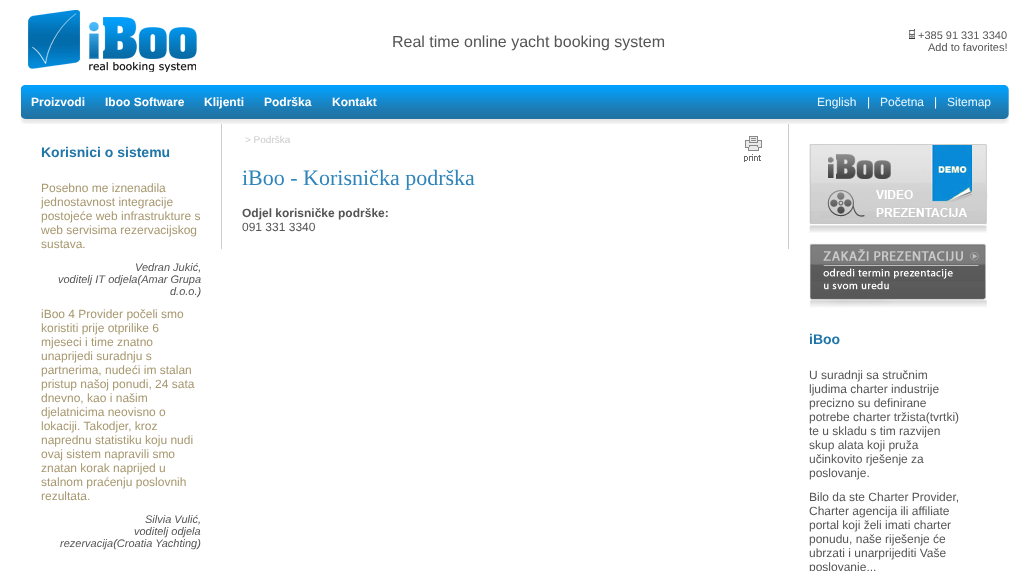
(async () => {
  const canvas = document.querySelector("canvas");
  canvas.width = 1030;
  canvas.height = 571;
  const ctx = canvas.getContext("2d");
  ctx.miterLimit = 4;
  ctx.fontKerning = "normal";
  async function loadImage(src) {
    const img = new Image();
    img.src = src;
    await img.decode();
    return img;
  }

  ctx.fillStyle = "#ffffff";
  ctx.fillRect(0, 0, 1030, 571);
  ctx.drawImage(await loadImage("img/1.png"), 28, 10, 169, 62);
  ctx.drawImage(await loadImage("img/2.png"), 909, 29, 6, 10);
  ctx.drawImage(await loadImage("img/3.png"), 21, 85, 988, 39);
  ctx.fillStyle = "#cccccc";
  ctx.fillRect(788, 124, 1, 125);
  ctx.fillRect(221, 124, 1, 125);
  ctx.drawImage(await loadImage("img/4.png"), 744, 136, 18, 26);
  ctx.drawImage(await loadImage("img/5.png"), 809, 144, 179, 89);
  ctx.drawImage(await loadImage("img/6.png"), 809, 243, 178, 65);
  ctx.font = "16px Liberation Sans";
  ctx.fillStyle = "#555555";
  ctx.fillText("Real time online yacht booking system", 392, 47);
  ctx.font = "11px Liberation Sans";
  ctx.fillText("+385 91 331 3340", 918, 39);
  ctx.fillText("Add to favorites!", 928, 51);
  ctx.font = "bold 12px Liberation Sans";
  ctx.fillStyle = "#ffffff";
  for (const [text, x, y] of [
    ["Proizvodi", 31, 106],
    ["Iboo Software", 105, 106],
    ["Klijenti", 204, 106],
    ["Podrška", 264, 106],
    ["Kontakt", 332, 106],
  ]) {
    ctx.fillText(text, x, y);
  }
  ctx.font = "12px Liberation Sans";
  ctx.fillStyle = "#eaf8ff";
  ctx.fillText("English", 817, 106);
  ctx.fillStyle = "#ffffff";
  ctx.fillText("|", 867, 106);
  ctx.fillStyle = "#eaf8ff";
  ctx.fillText("Početna", 880, 106);
  ctx.fillStyle = "#ffffff";
  ctx.fillText("|", 934, 106);
  ctx.fillStyle = "#eaf8ff";
  ctx.fillText("Sitemap", 947, 106);
  ctx.font = "bold 14px Liberation Sans";
  ctx.fillStyle = "#1f75a8";
  ctx.fillText("Korisnici o sistemu", 41, 157);
  ctx.font = "12px Liberation Sans";
  ctx.fillStyle = "#a79870";
  for (const [text, x, y] of [
    ["Posebno me iznenadila", 41, 192],
    ["jednostavnost integracije", 41, 206],
    ["postojeće web infrastrukture s", 41, 220],
    ["web servisima rezervacijskog", 41, 234],
    ["sustava.", 41, 248],
  ]) {
    ctx.fillText(text, x, y);
  }
  ctx.font = "italic 11px Liberation Sans";
  ctx.fillStyle = "#555555";
  for (const [text, x, y] of [
    ["Vedran Jukić,", 135, 271],
    ["voditelj IT odjela(Amar Grupa", 58, 283],
    ["d.o.o.)", 170, 295],
  ]) {
    ctx.fillText(text, x, y);
  }
  ctx.font = "12px Liberation Sans";
  ctx.fillStyle = "#a79870";
  for (const [text, x, y] of [
    ["iBoo 4 Provider počeli smo", 41, 318],
    ["koristiti prije otprilike 6", 41, 332],
    ["mjeseci i time znatno", 41, 346],
    ["unaprijedi suradnju s", 41, 360],
    ["partnerima, nudeći im stalan", 41, 374],
    ["pristup našoj ponudi, 24 sata", 41, 388],
    ["dnevno, kao i našim", 41, 402],
    ["djelatnicima neovisno o", 41, 416],
    ["lokaciji. Takodjer, kroz", 41, 430],
    ["naprednu statistiku koju nudi", 41, 444],
    ["ovaj sistem napravili smo", 41, 458],
    ["znatan korak naprijed u", 41, 472],
    ["stalnom praćenju poslovnih", 41, 486],
    ["rezultata.", 41, 500],
  ]) {
    ctx.fillText(text, x, y);
  }
  ctx.font = "italic 11px Liberation Sans";
  ctx.fillStyle = "#555555";
  for (const [text, x, y] of [
    ["Silvia Vulić,", 145, 523],
    ["voditelj odjela", 134, 535],
    ["rezervacija(Croatia Yachting)", 60, 547],
  ]) {
    ctx.fillText(text, x, y);
  }
  ctx.font = "10px Liberation Sans";
  ctx.fillStyle = "#cccccc";
  ctx.fillText("> Podrška", 245, 143);
  ctx.font = "22px Liberation Serif";
  ctx.fillStyle = "#2e84bb";
  ctx.fillText("iBoo - Korisnička podrška", 242, 185);
  ctx.font = "bold 12px Liberation Sans";
  ctx.fillStyle = "#555555";
  ctx.fillText("Odjel korisničke podrške:", 242, 217);
  ctx.font = "12px Liberation Sans";
  ctx.fillText("091 331 3340", 242, 231);
  ctx.font = "bold 14px Liberation Sans";
  ctx.fillStyle = "#1f75a8";
  ctx.fillText("iBoo", 809, 344);
  ctx.font = "12px Liberation Sans";
  ctx.fillStyle = "#555555";
  for (const [text, x, y] of [
    ["U suradnji sa stručnim", 809, 379],
    ["ljudima charter industrije", 809, 393],
    ["precizno su definirane", 809, 407],
    ["potrebe charter tržista(tvrtki)", 809, 421],
    ["te u skladu s tim razvijen", 809, 435],
    ["skup alata koji pruža", 809, 449],
    ["učinkovito rješenje za", 809, 463],
    ["poslovanje.", 809, 477],
    ["Bilo da ste Charter Provider,", 809, 501],
    ["Charter agencija ili affiliate", 809, 515],
    ["portal koji želi imati charter", 809, 529],
    ["ponudu, naše riješenje će", 809, 543],
    ["ubrzati i unarprijediti Vaše", 809, 557],
    ["poslovanje...", 809, 571],
  ]) {
    ctx.fillText(text, x, y);
  }
})();
